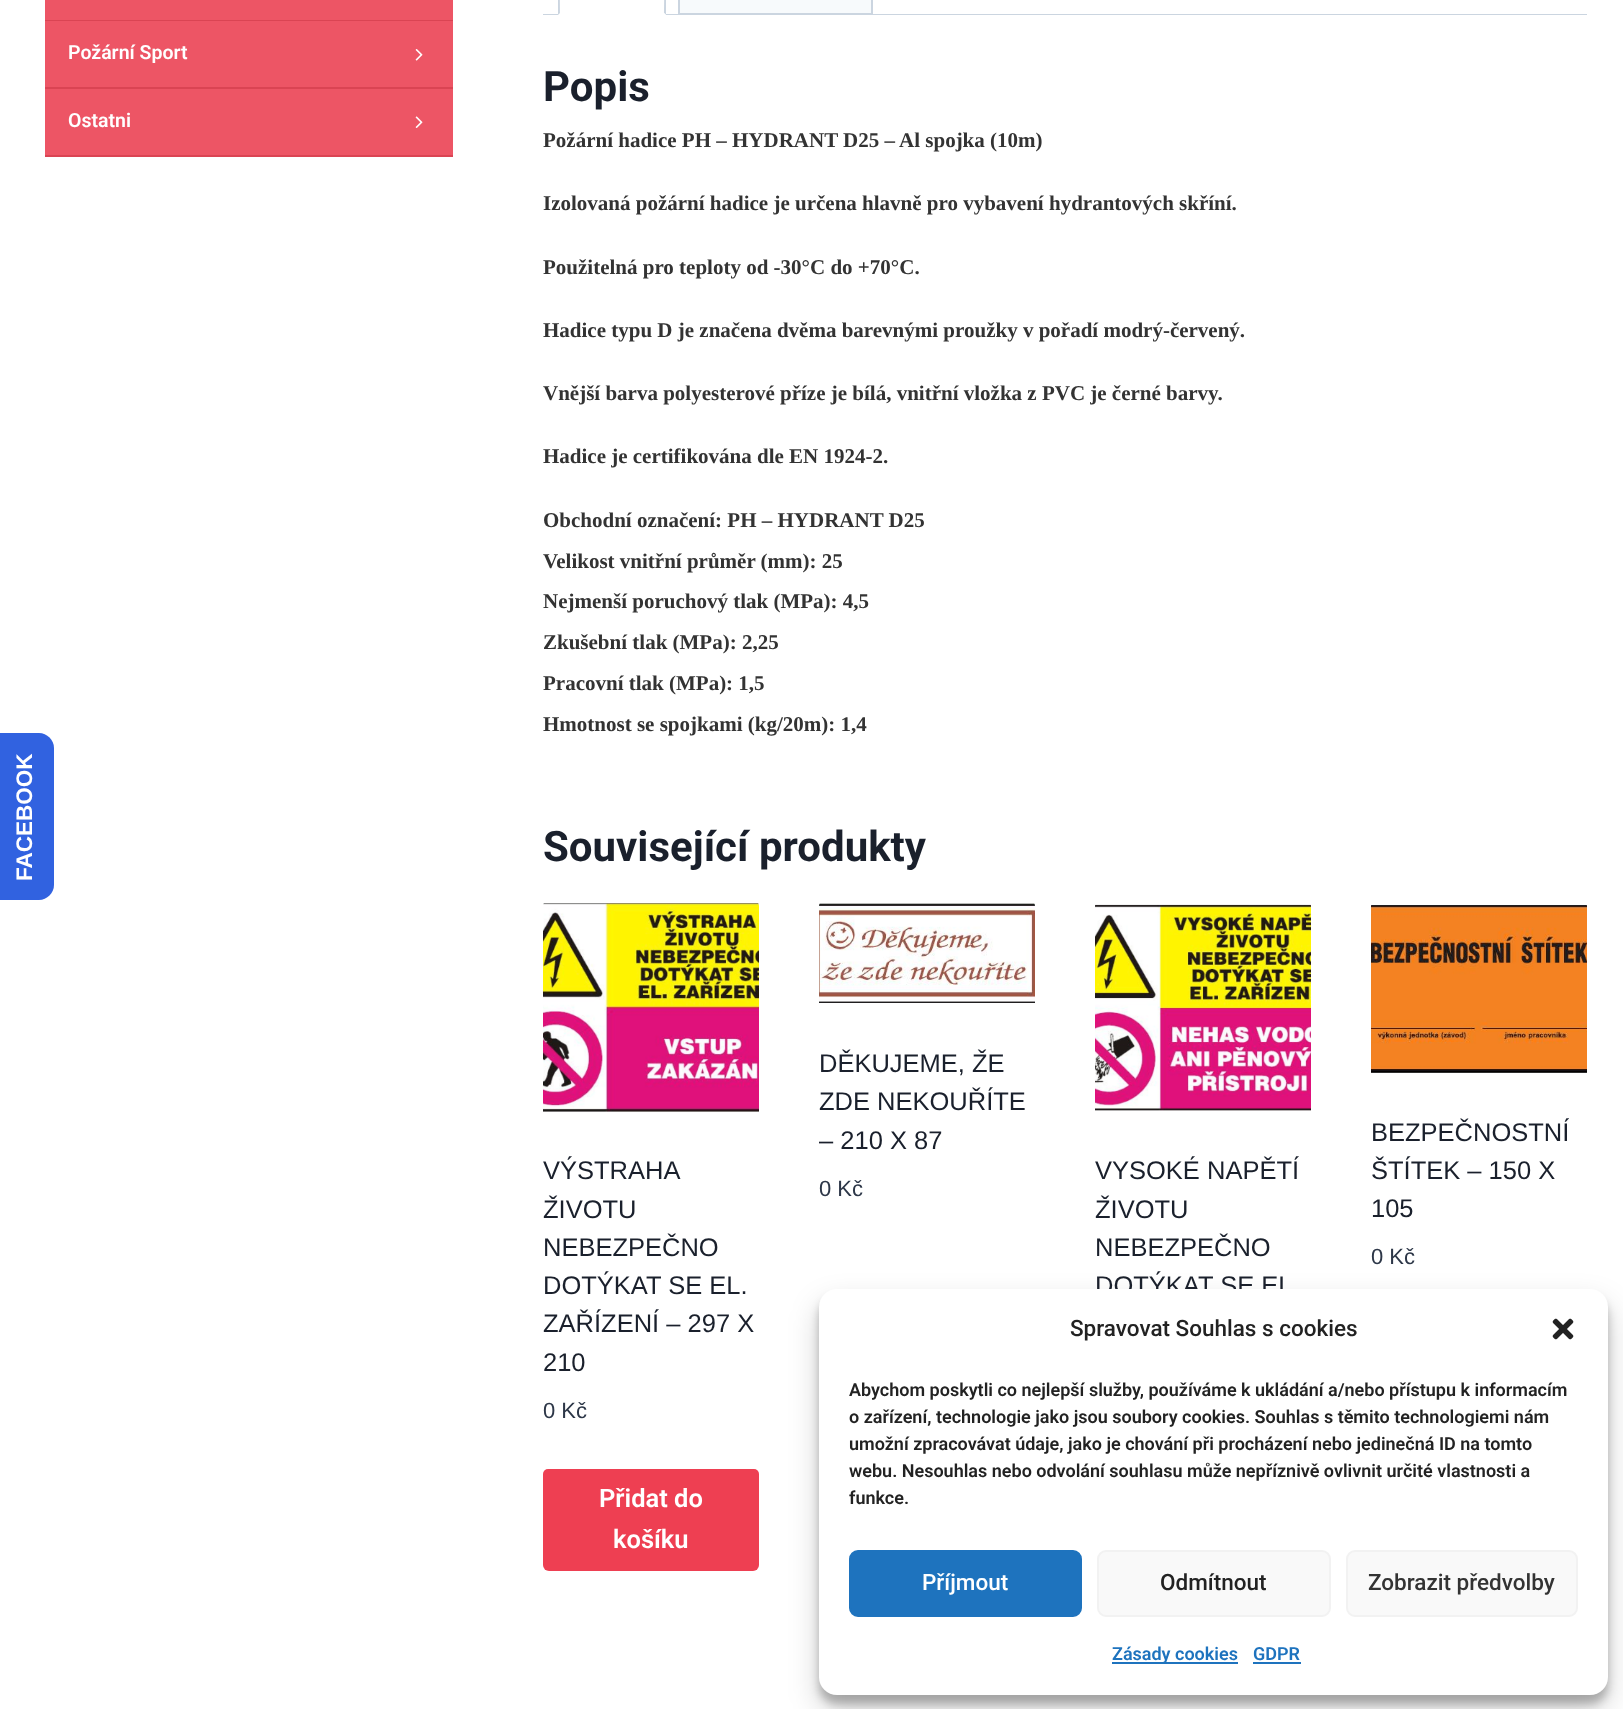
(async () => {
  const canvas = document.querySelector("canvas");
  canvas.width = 1623;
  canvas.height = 1709;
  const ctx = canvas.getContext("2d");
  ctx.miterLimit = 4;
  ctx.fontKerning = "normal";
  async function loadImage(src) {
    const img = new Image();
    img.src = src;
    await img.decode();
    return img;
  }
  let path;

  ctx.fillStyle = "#ffffff";
  ctx.fillRect(0, 0, 1623, 1709);
  ctx.fillStyle = "#3162e0";
  path = new Path2D("M-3 900V733H39C47 733 54 740 54 748V885C54 893 47 900 39 900Z");
  ctx.fill(path);
  for (const [x, y, w, h, color] of [
    [45, 0, 408, 20, "#ed5565"],
    [45, 20, 408, 1, "#da4453"],
    [45, 21, 408, 66, "#ed5565"],
    [45, 87, 408, 2, "#da4453"],
  ]) {
    ctx.fillStyle = color;
    ctx.fillRect(x, y, w, h);
  }
  ctx.drawImage(await loadImage("img/1.png"), 415, 49, 8, 12);
  ctx.fillStyle = "#ed5565";
  ctx.fillRect(45, 89, 408, 66);
  ctx.fillStyle = "#da4453";
  ctx.fillRect(45, 155, 408, 2);
  ctx.drawImage(await loadImage("img/2.png"), 415, 116, 8, 12);
  ctx.fillStyle = "#f7fafc";
  ctx.beginPath();
  ctx.rect(679, -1, 193, 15);
  ctx.fill();
  ctx.strokeStyle = "#cbd5e0";
  ctx.lineWidth = 2;
  ctx.stroke();
  ctx.fillStyle = "#cbd5e0";
  ctx.fillRect(543, 14, 1044, 1);
  ctx.fillStyle = "#ffffff";
  ctx.fillRect(558, 14, 108, 1);
  ctx.fillStyle = "#cbd5e0";
  path = new Path2D("M666 15V-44L665-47L663-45C665-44 664 7 664 13Z");
  ctx.fill(path);
  ctx.fillStyle = "#ffffff";
  path = new Path2D("M666 15L664 13V14H560V13L558 15Z");
  ctx.fill(path);
  ctx.fillStyle = "#cbd5e0";
  path = new Path2D("M558 15L560 13C560 7 559-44 561-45L559-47L558-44Z");
  ctx.fill(path);
  ctx.drawImage(await loadImage("img/3.png"), 543, 903, 216, 209);
  ctx.fillStyle = "#ee3f52";
  ctx.beginPath();
  ctx.roundRect(543, 1469, 216, 102, [5, 5, 6, 6]);
  ctx.fill();
  ctx.drawImage(await loadImage("img/4.png"), 819, 903, 216, 100);
  ctx.drawImage(await loadImage("img/5.png"), 1095, 904, 216, 207);
  ctx.drawImage(await loadImage("img/6.png"), 1371, 905, 216, 168);
  ctx.fillStyle = "rgba(0, 0, 0, 0.23)";
  ctx.filter = "blur(4.5px)";
  ctx.beginPath();
  ctx.roundRect(819, 1298, 789, 406, 18);
  ctx.fill();
  ctx.filter = "none";
  ctx.fillStyle = "rgba(0, 0, 0, 0.19)";
  ctx.filter = "blur(15px)";
  ctx.beginPath();
  ctx.roundRect(819, 1304, 789, 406, 18);
  ctx.fill();
  ctx.filter = "none";
  ctx.font = "bold 22.5px Liberation Sans";
  ctx.fillStyle = "#ffffff";
  ctx.save();
  ctx.translate(32, 881);
  ctx.rotate(-90 * Math.PI / 180);
  ctx.fillText("FACEBOOK", 0, 0);
  ctx.restore();
  ctx.font = "600 19.5px Roboto";
  ctx.fillText("Požární Sport", 68, 59);
  ctx.fillText("Ostatni", 68, 127);
  ctx.font = "bold 42px Roboto";
  ctx.fillStyle = "#1a202c";
  ctx.fillText("Popis", 543, 101);
  ctx.font = "bold 21px Liberation Serif";
  ctx.fillStyle = "#333333";
  for (const [text, x, y] of [
    ["Požární hadice PH – HYDRANT D25 – Al spojka (10m)", 543, 147],
    ["Izolovaná požární hadice je určena hlavně pro vybavení hydrantových skříní.", 543, 210],
    ["Použitelná pro teploty od -30°C do +70°C.", 543, 274],
    ["Hadice typu D je značena dvěma barevnými proužky v pořadí modrý-červený.", 543, 337],
    ["Vnější barva polyesterové příze je bílá, vnitřní vložka z PVC je černé barvy.", 543, 400],
    ["Hadice je certifikována dle EN 1924-2.", 543, 463],
    ["Obchodní označení: PH – HYDRANT D25", 543, 527],
    ["Velikost vnitřní průměr (mm): 25", 543, 568],
    ["Nejmenší poruchový tlak (MPa): 4,5", 543, 608],
    ["Zkušební tlak (MPa): 2,25", 543, 649],
    ["Pracovní tlak (MPa): 1,5", 543, 690],
    ["Hmotnost se spojkami (kg/20m): 1,4", 543, 731],
  ]) {
    ctx.fillText(text, x, y);
  }
  ctx.font = "bold 42px Roboto";
  ctx.fillStyle = "#1a202c";
  ctx.fillText("Související produkty", 543, 861);
  ctx.font = "25.5px Liberation Sans";
  for (const [text, x, y] of [
    ["VÝSTRAHA", 543, 1179],
    ["ŽIVOTU", 543, 1218],
    ["NEBEZPEČNO", 543, 1256],
    ["DOTÝKAT SE EL.", 543, 1294],
    ["ZAŘÍZENÍ – 297 X", 543, 1332],
    ["210", 543, 1371],
  ]) {
    ctx.fillText(text, x, y);
  }
  ctx.font = "22px Liberation Sans";
  ctx.fillStyle = "#2d3748";
  ctx.fillText("0 Kč", 543, 1418);
  ctx.font = "600 25.5px Roboto";
  ctx.fillStyle = "#ffffff";
  ctx.fillText("Přidat do", 599, 1507);
  ctx.fillText("košíku", 613, 1548);
  ctx.font = "25.5px Liberation Sans";
  ctx.fillStyle = "#1a202c";
  for (const [text, x, y] of [
    ["DĚKUJEME, ŽE", 819, 1072],
    ["ZDE NEKOUŘÍTE", 819, 1110],
    ["– 210 X 87", 819, 1149],
  ]) {
    ctx.fillText(text, x, y);
  }
  ctx.font = "22px Liberation Sans";
  ctx.fillStyle = "#2d3748";
  ctx.fillText("0 Kč", 819, 1196);
  ctx.font = "25.5px Liberation Sans";
  ctx.fillStyle = "#1a202c";
  for (const [text, x, y] of [
    ["VYSOKÉ NAPĚTÍ", 1095, 1179],
    ["ŽIVOTU", 1095, 1218],
    ["NEBEZPEČNO", 1095, 1256],
    ["DOTÝKAT SE EL", 1095, 1294],
    ["BEZPEČNOSTNÍ", 1371, 1141],
    ["ŠTÍTEK – 150 X", 1371, 1179],
    ["105", 1371, 1217],
  ]) {
    ctx.fillText(text, x, y);
  }
  ctx.font = "22px Liberation Sans";
  ctx.fillStyle = "#2d3748";
  ctx.fillText("0 Kč", 1371, 1264);
  ctx.fillStyle = "#ffffff";
  ctx.beginPath();
  ctx.roundRect(819, 1289, 789, 406, 18);
  ctx.fill();
  ctx.font = "500 22.5px Roboto";
  ctx.fillStyle = "#222222";
  ctx.fillText("Spravovat Souhlas s cookies", 1070, 1336);
  ctx.drawImage(await loadImage("img/7.png"), 1552, 1318, 22, 22);
  ctx.font = "600 18px Roboto";
  for (const [text, x, y] of [
    ["Abychom poskytli co nejlepší služby, používáme k ukládání a/nebo přístupu k informacím", 849, 1396],
    ["o zařízení, technologie jako jsou soubory cookies. Souhlas s těmito technologiemi nám", 849, 1423],
    ["umožní zpracovávat údaje, jako je chování při procházení nebo jedinečná ID na tomto", 849, 1450],
    ["webu. Nesouhlas nebo odvolání souhlasu může nepříznivě ovlivnit určité vlastnosti a", 849, 1477],
    ["funkce.", 849, 1504],
  ]) {
    ctx.fillText(text, x, y);
  }
  ctx.fillStyle = "#1e73be";
  ctx.beginPath();
  ctx.roundRect(850, 1551, 231, 65, 8);
  ctx.fill();
  ctx.strokeStyle = "#1e73be";
  ctx.stroke();
  ctx.font = "500 22.5px Roboto";
  ctx.fillStyle = "#ffffff";
  ctx.fillText("Příjmout", 922, 1590);
  ctx.fillStyle = "#f9f9f9";
  ctx.beginPath();
  ctx.roundRect(1098, 1551, 232, 65, 8);
  ctx.fill();
  ctx.strokeStyle = "#f2f2f2";
  ctx.stroke();
  ctx.fillStyle = "#222222";
  ctx.fillText("Odmítnout", 1160, 1590);
  ctx.fillStyle = "#f9f9f9";
  ctx.beginPath();
  ctx.roundRect(1347, 1551, 230, 65, 8);
  ctx.fill();
  ctx.stroke();
  ctx.fillStyle = "#333333";
  ctx.fillText("Zobrazit předvolby", 1368, 1590);
  ctx.fillStyle = "#1e73be";
  ctx.fillRect(1112, 1662, 126, 2);
  ctx.font = "600 18px Roboto";
  ctx.fillText("Zásady cookies", 1112, 1660);
  ctx.fillText("GDPR", 1253, 1660);
  ctx.fillRect(1253, 1662, 48, 2);
})();
